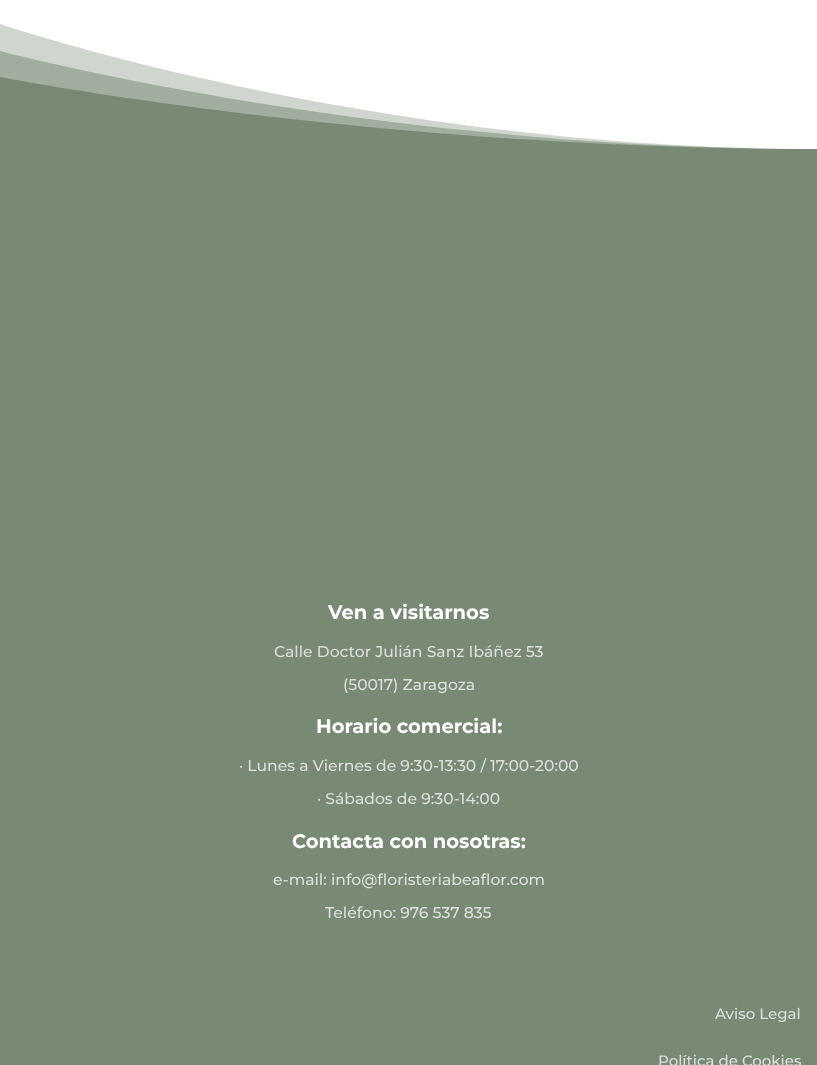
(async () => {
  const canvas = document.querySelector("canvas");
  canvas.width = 817;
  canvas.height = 1065;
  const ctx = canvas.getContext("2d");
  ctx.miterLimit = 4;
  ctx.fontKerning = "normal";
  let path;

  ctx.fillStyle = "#ffffff";
  ctx.fillRect(0, 0, 817, 1065);
  ctx.fillStyle = "#788a74";
  ctx.fillRect(0, 77, 817, 988);
  ctx.fillStyle = "#a1ad9e";
  path = new Path2D("M0 24V77C0 77 366 149 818 149V24Z");
  ctx.fill(path);
  ctx.fillStyle = "rgba(255, 255, 255, 0.5)";
  path = new Path2D("M0 24V51C0 51 366 149 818 149V24Z");
  ctx.fill(path);
  ctx.fillStyle = "#ffffff";
  path = new Path2D("M0 24C0 24 366 149 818 149V24Z");
  ctx.fill(path);
  ctx.font = "bold 19.5px Montserrat";
  ctx.fillText("Ven a visitarnos", 328, 619);
  ctx.font = "500 15.6px Montserrat";
  ctx.fillStyle = "#dddddd";
  ctx.fillText("Calle Doctor Julián Sanz Ibáñez 53", 274, 657);
  ctx.fillText("(50017) Zaragoza", 343, 690);
  ctx.font = "bold 19.5px Montserrat";
  ctx.fillStyle = "#ffffff";
  ctx.fillText("Horario comercial:", 316, 733);
  ctx.font = "500 15.6px Montserrat";
  ctx.fillStyle = "#dddddd";
  ctx.fillText("· Lunes a Viernes de 9:30-13:30 / 17:00-20:00", 239, 771);
  ctx.fillText("· Sábados de 9:30-14:00", 317, 804);
  ctx.font = "bold 19.5px Montserrat";
  ctx.fillStyle = "#ffffff";
  ctx.fillText("Contacta con nosotras:", 292, 848);
  ctx.font = "500 15.6px Montserrat";
  ctx.fillStyle = "#dddddd";
  ctx.fillText("e-mail: info@floristeriabeaflor.com", 273, 885);
  ctx.fillText("Teléfono: 976 537 835", 325, 918);
  ctx.font = "500 15px Montserrat";
  ctx.fillText("Aviso Legal", 715, 1019);
  ctx.fillText("Política de Cookies", 658, 1066);
})();
